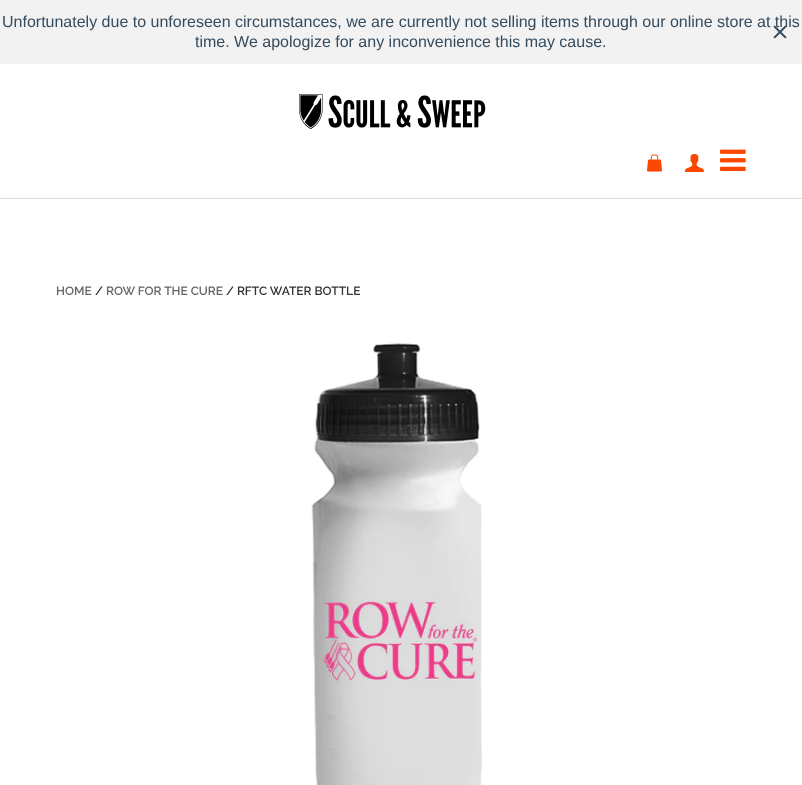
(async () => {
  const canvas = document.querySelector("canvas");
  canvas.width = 802;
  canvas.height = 785;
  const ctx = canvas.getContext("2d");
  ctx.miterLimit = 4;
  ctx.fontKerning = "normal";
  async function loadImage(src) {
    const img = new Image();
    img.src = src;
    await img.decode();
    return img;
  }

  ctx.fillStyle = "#ffffff";
  ctx.fillRect(0, 0, 802, 785);
  ctx.fillStyle = "#f2f2f2";
  ctx.fillRect(0, 0, 802, 64);
  ctx.fillStyle = "#dddddd";
  ctx.fillRect(0, 198, 802, 1);
  ctx.drawImage(await loadImage("img/2.png"), 299, 94, 187, 35);
  ctx.drawImage(await loadImage("img/3.png"), 647, 154, 15, 18);
  ctx.drawImage(await loadImage("img/4.png"), 685, 154, 19, 18);
  ctx.drawImage(await loadImage("img/5.png"), 720, 149, 26, 22);
  ctx.drawImage(await loadImage("img/6.png"), 311, 343, 171, 442);
  ctx.font = "16px Liberation Sans";
  ctx.fillStyle = "#354b5e";
  ctx.fillText("Unfortunately due to unforeseen circumstances, we are currently not selling items through our online store at this", 2, 27);
  ctx.fillText("time. We apologize for any inconvenience this may cause.", 195, 47);
  ctx.drawImage(await loadImage("img/1.png"), 773, 25, 14, 14);
  ctx.font = "600 12px Raleway";
  ctx.fillStyle = "#666666";
  ctx.fillText("HOME", 56, 295);
  ctx.fillStyle = "#333333";
  ctx.fillText("/", 95, 295);
  ctx.fillStyle = "#666666";
  ctx.fillText("ROW FOR THE CURE", 106, 295);
  ctx.fillStyle = "#333333";
  ctx.fillText("/ RFTC WATER BOTTLE", 226, 295);
})();
